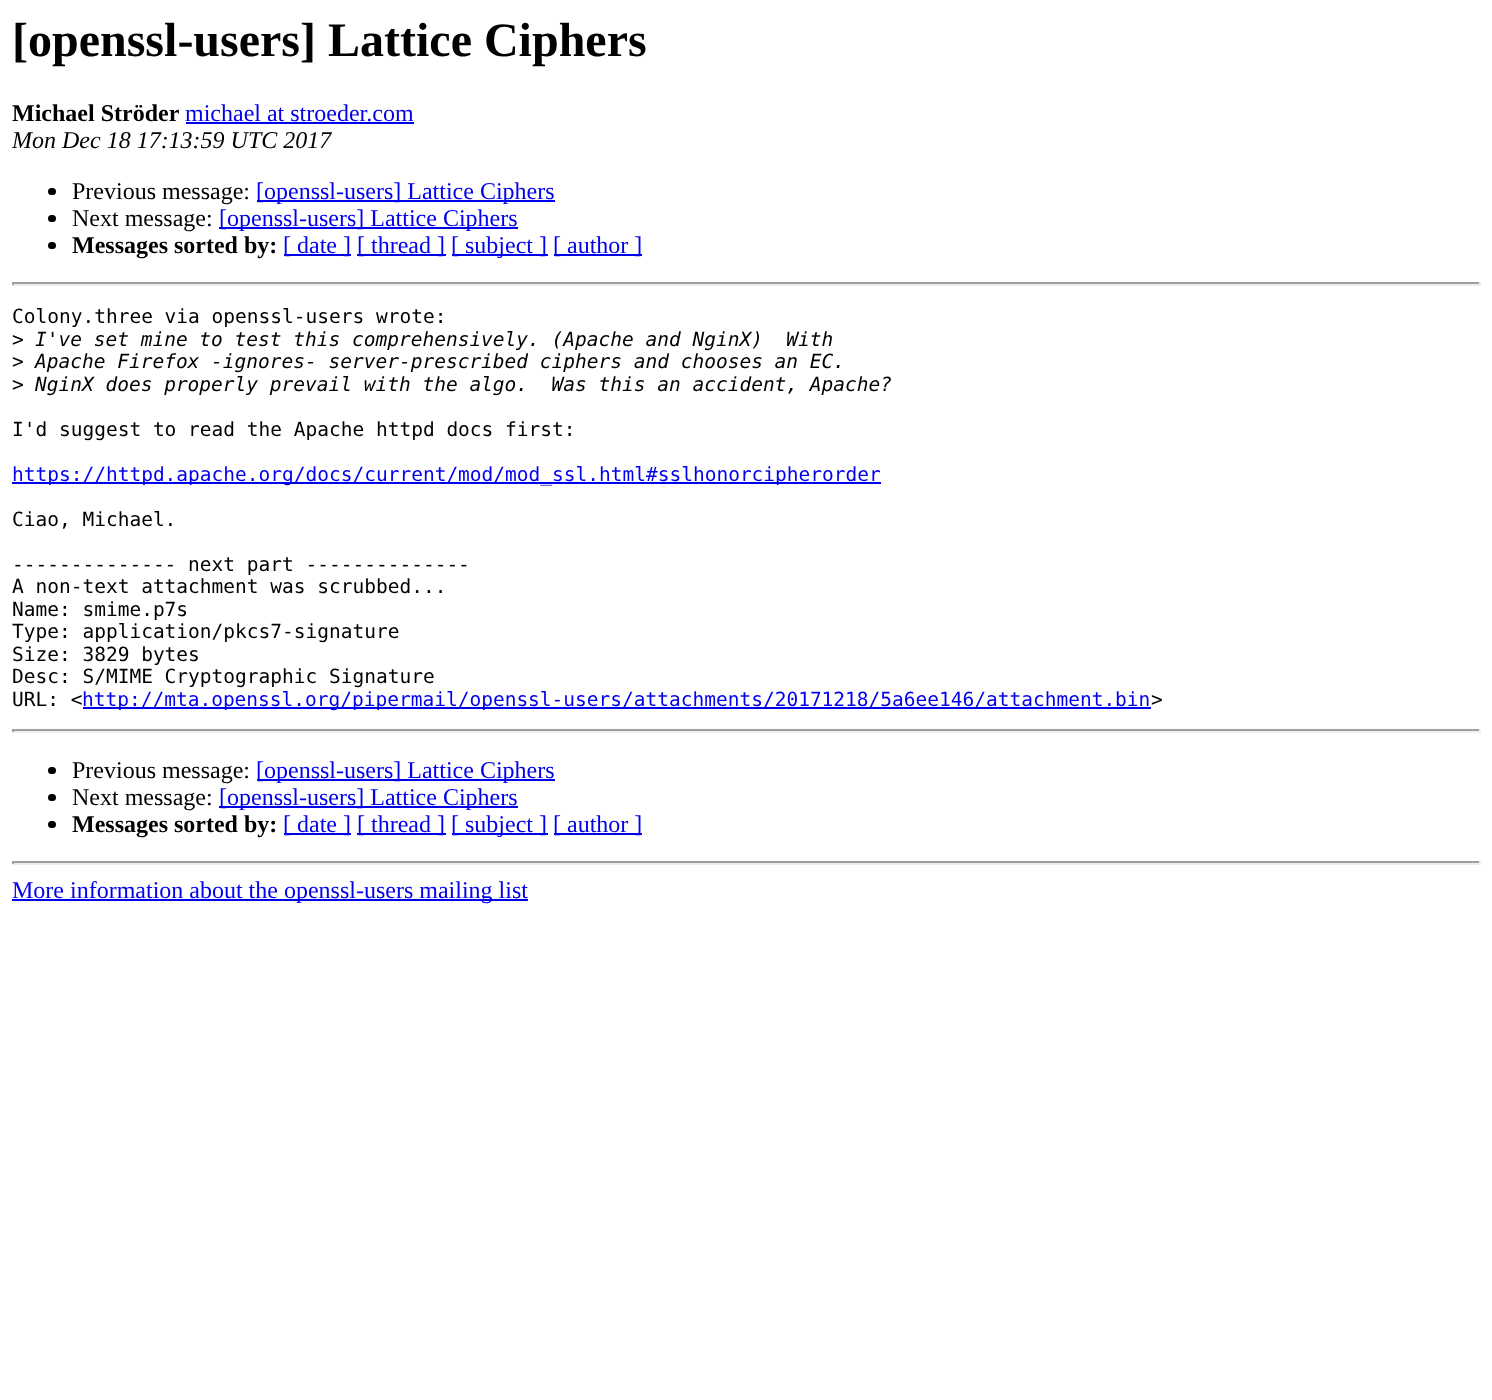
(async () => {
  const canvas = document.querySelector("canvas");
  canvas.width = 1492;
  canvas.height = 1400;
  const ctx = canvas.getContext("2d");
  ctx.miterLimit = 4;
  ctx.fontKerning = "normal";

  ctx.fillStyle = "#ffffff";
  ctx.fillRect(0, 0, 1492, 1400);
  ctx.fillStyle = "#0000ee";
  ctx.fillRect(186, 122, 228, 2);
  ctx.fillStyle = "#000000";
  ctx.beginPath();
  ctx.roundRect(48, 188, 8, 7, 3.5);
  ctx.fill();
  ctx.fillStyle = "#0000ee";
  ctx.fillRect(257, 200, 298, 2);
  ctx.fillStyle = "#000000";
  ctx.beginPath();
  ctx.roundRect(48, 215, 8, 7, 3.5);
  ctx.fill();
  ctx.fillStyle = "#0000ee";
  ctx.fillRect(219, 227, 299, 2);
  ctx.fillStyle = "#000000";
  ctx.beginPath();
  ctx.roundRect(48, 242, 8, 7, 3.5);
  ctx.fill();
  for (const [x, y, w, h, color] of [
    [284, 254, 67, 2, "#0000ee"],
    [357, 254, 89, 2, "#0000ee"],
    [452, 254, 96, 2, "#0000ee"],
    [554, 254, 88, 2, "#0000ee"],
    [12, 282, 1469, 2, "#9f9f9f"],
    [1479, 282, 2, 3, "#eeeeee"],
    [12, 284, 1469, 2, "#eeeeee"],
    [12, 282, 2, 3, "#9f9f9f"],
    [12, 482, 869, 2, "#0000ee"],
    [83, 707, 1068, 2, "#0000ee"],
    [12, 729, 1469, 2, "#9f9f9f"],
    [1479, 729, 2, 3, "#eeeeee"],
    [12, 731, 1469, 2, "#eeeeee"],
    [12, 729, 2, 3, "#9f9f9f"],
  ]) {
    ctx.fillStyle = color;
    ctx.fillRect(x, y, w, h);
  }
  ctx.fillStyle = "#000000";
  ctx.beginPath();
  ctx.roundRect(48, 767, 8, 7, 3.5);
  ctx.fill();
  ctx.fillStyle = "#0000ee";
  ctx.fillRect(257, 779, 298, 2);
  ctx.fillStyle = "#000000";
  ctx.beginPath();
  ctx.roundRect(48, 794, 8, 7, 3.5);
  ctx.fill();
  ctx.fillStyle = "#0000ee";
  ctx.fillRect(219, 806, 299, 2);
  ctx.fillStyle = "#000000";
  ctx.beginPath();
  ctx.roundRect(48, 821, 8, 7, 3.5);
  ctx.fill();
  for (const [x, y, w, h, color] of [
    [284, 833, 67, 2, "#0000ee"],
    [357, 833, 89, 2, "#0000ee"],
    [452, 833, 96, 2, "#0000ee"],
    [554, 833, 88, 2, "#0000ee"],
    [12, 861, 1469, 2, "#9f9f9f"],
    [1479, 861, 2, 3, "#eeeeee"],
    [12, 863, 1469, 2, "#eeeeee"],
    [12, 861, 2, 3, "#9f9f9f"],
    [12, 899, 516, 2, "#0000ee"],
  ]) {
    ctx.fillStyle = color;
    ctx.fillRect(x, y, w, h);
  }
  ctx.font = "bold 48px Liberation Serif";
  ctx.fillStyle = "#000000";
  ctx.fillText("[openssl-users] Lattice Ciphers", 12, 56);
  ctx.font = "bold 24px Liberation Serif";
  ctx.fillText("Michael Ströder", 12, 121);
  ctx.font = "24px Liberation Serif";
  ctx.fillStyle = "#0000ee";
  ctx.fillText("michael at stroeder.com", 185, 121);
  ctx.font = "italic 24px Liberation Serif";
  ctx.fillStyle = "#000000";
  ctx.fillText("Mon Dec 18 17:13:59 UTC 2017", 12, 148);
  ctx.font = "24px Liberation Serif";
  ctx.fillText("Previous message:", 72, 199);
  ctx.fillStyle = "#0000ee";
  ctx.fillText("[openssl-users] Lattice Ciphers", 256, 199);
  ctx.fillStyle = "#000000";
  ctx.fillText("Next message:", 72, 226);
  ctx.fillStyle = "#0000ee";
  ctx.fillText("[openssl-users] Lattice Ciphers", 219, 226);
  ctx.font = "bold 24px Liberation Serif";
  ctx.fillStyle = "#000000";
  ctx.fillText("Messages sorted by:", 72, 253);
  ctx.font = "24px Liberation Serif";
  ctx.fillStyle = "#0000ee";
  for (const [text, x, y] of [
    ["[ date ]", 283, 253],
    ["[ thread ]", 357, 253],
    ["[ subject ]", 451, 253],
    ["[ author ]", 553, 253],
  ]) {
    ctx.fillText(text, x, y);
  }
  ctx.font = "19.5px DejaVu Sans Mono";
  ctx.fillStyle = "#000000";
  ctx.fillText("Colony.three via openssl-users wrote:", 12, 323);
  ctx.fillText(">", 12, 346);
  ctx.font = "italic 19.5px DejaVu Sans Mono";
  ctx.fillText("I've set mine to test this comprehensively. (Apache and NginX)  With", 35, 346);
  ctx.font = "19.5px DejaVu Sans Mono";
  ctx.fillText(">", 12, 368);
  ctx.font = "italic 19.5px DejaVu Sans Mono";
  ctx.fillText("Apache Firefox -ignores- server-prescribed ciphers and chooses an EC.", 35, 368);
  ctx.font = "19.5px DejaVu Sans Mono";
  ctx.fillText(">", 12, 391);
  ctx.font = "italic 19.5px DejaVu Sans Mono";
  ctx.fillText("NginX does properly prevail with the algo.  Was this an accident, Apache?", 35, 391);
  ctx.font = "19.5px DejaVu Sans Mono";
  ctx.fillText("I'd suggest to read the Apache httpd docs first:", 12, 436);
  ctx.fillStyle = "#0000ee";
  ctx.fillText("https://httpd.apache.org/docs/current/mod/mod_ssl.html#sslhonorcipherorder", 12, 481);
  ctx.fillStyle = "#000000";
  for (const [text, x, y] of [
    ["Ciao, Michael.", 12, 526],
    ["-------------- next part --------------", 12, 571],
    ["A non-text attachment was scrubbed...", 12, 593],
    ["Name: smime.p7s", 12, 616],
    ["Type: application/pkcs7-signature", 12, 638],
    ["Size: 3829 bytes", 12, 661],
    ["Desc: S/MIME Cryptographic Signature", 12, 683],
    ["URL: <", 12, 706],
  ]) {
    ctx.fillText(text, x, y);
  }
  ctx.fillStyle = "#0000ee";
  ctx.fillText("http://mta.openssl.org/pipermail/openssl-users/attachments/20171218/5a6ee146/attachment.bin", 82, 706);
  ctx.fillStyle = "#000000";
  ctx.fillText(">", 1151, 706);
  ctx.font = "24px Liberation Serif";
  ctx.fillText("Previous message:", 72, 778);
  ctx.fillStyle = "#0000ee";
  ctx.fillText("[openssl-users] Lattice Ciphers", 256, 778);
  ctx.fillStyle = "#000000";
  ctx.fillText("Next message:", 72, 805);
  ctx.fillStyle = "#0000ee";
  ctx.fillText("[openssl-users] Lattice Ciphers", 219, 805);
  ctx.font = "bold 24px Liberation Serif";
  ctx.fillStyle = "#000000";
  ctx.fillText("Messages sorted by:", 72, 832);
  ctx.font = "24px Liberation Serif";
  ctx.fillStyle = "#0000ee";
  for (const [text, x, y] of [
    ["[ date ]", 283, 832],
    ["[ thread ]", 357, 832],
    ["[ subject ]", 451, 832],
    ["[ author ]", 553, 832],
    ["More information about the openssl-users mailing list", 12, 898],
  ]) {
    ctx.fillText(text, x, y);
  }
})();
